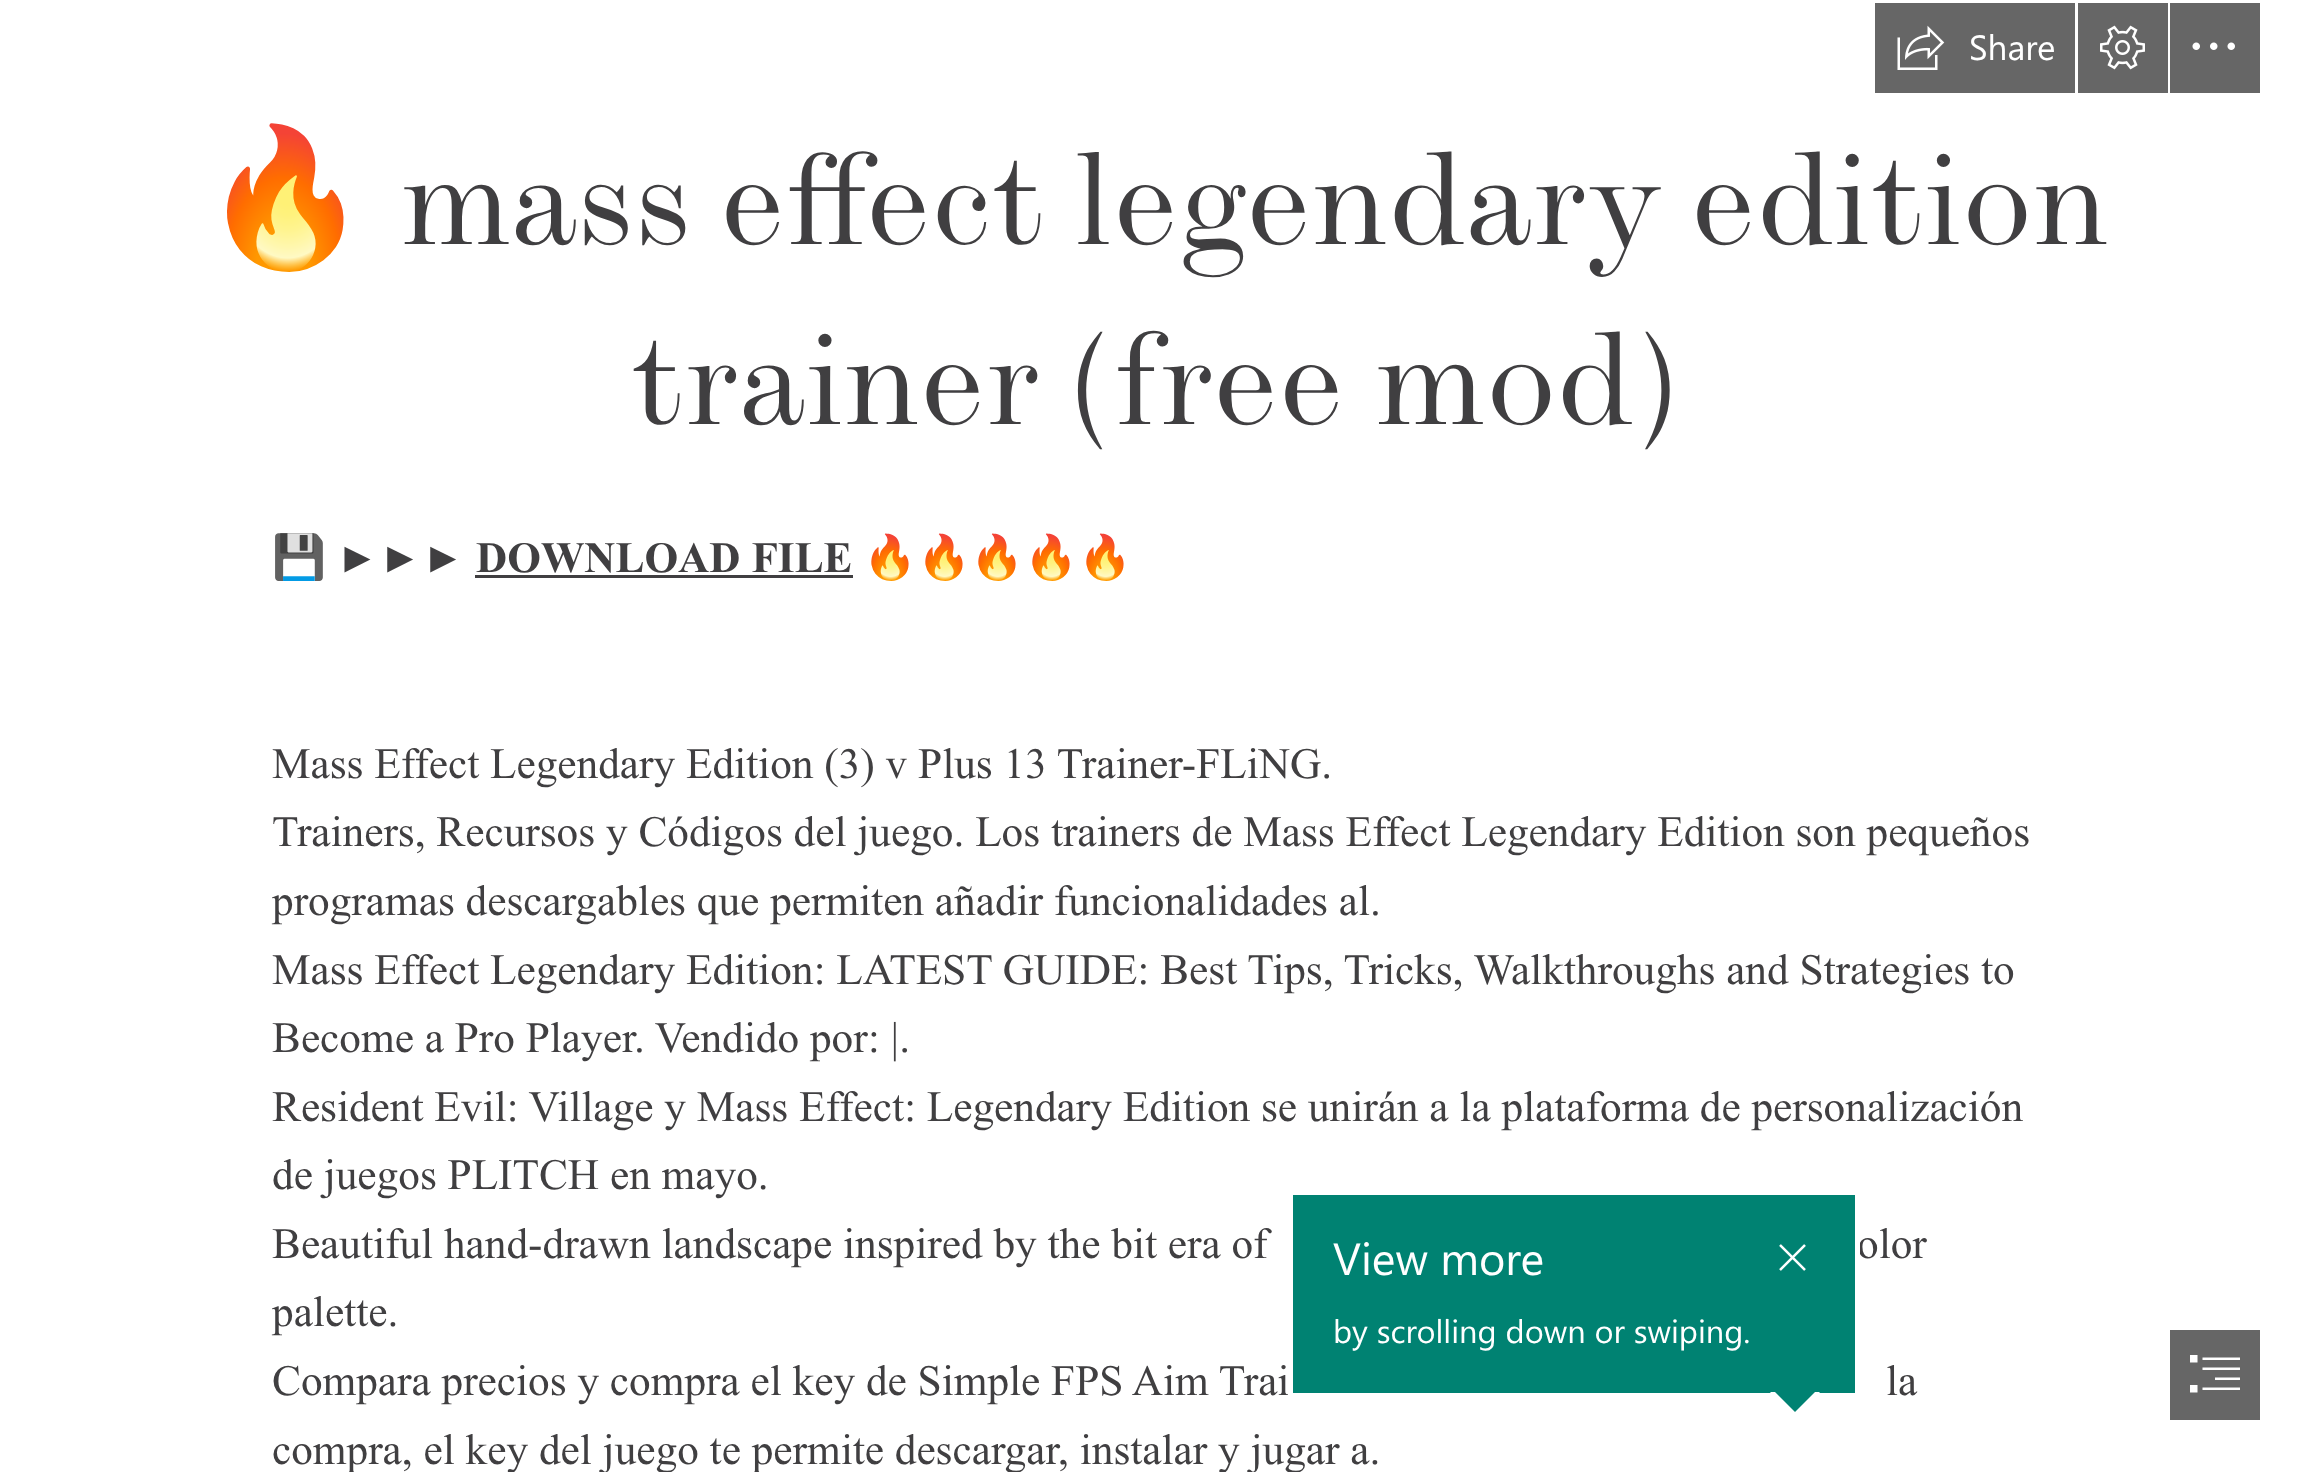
(async () => {
  const canvas = document.querySelector("canvas");
  canvas.width = 2308;
  canvas.height = 1472;
  const ctx = canvas.getContext("2d");
  ctx.miterLimit = 4;
  ctx.fontKerning = "normal";
  async function loadImage(src) {
    const img = new Image();
    img.src = src;
    await img.decode();
    return img;
  }
  let path;

  ctx.fillStyle = "#ffffff";
  ctx.fillRect(0, 0, 2308, 1472);
  ctx.fillStyle = "#666666";
  ctx.fillRect(1875, 3, 200, 90);
  ctx.drawImage(await loadImage("img/1.png"), 1897, 25, 48, 45);
  ctx.fillRect(2078, 3, 90, 90);
  ctx.drawImage(await loadImage("img/2.png"), 2100, 25, 45, 45);
  ctx.fillRect(2170, 3, 90, 90);
  ctx.drawImage(await loadImage("img/3.png"), 2192, 42, 43, 8);
  ctx.fillStyle = "#403f41";
  ctx.fillRect(475, 575, 378, 3);
  ctx.fillStyle = "#666666";
  ctx.fillRect(2170, 1330, 90, 90);
  ctx.drawImage(await loadImage("img/5.png"), 2190, 1355, 50, 38);
  ctx.font = "35px Segoe UI";
  ctx.fillStyle = "#ffffff";
  ctx.fillText("Share", 1969, 60);
  ctx.font = "135.4px Noto Color Emoji";
  ctx.fillStyle = "#403f41";
  ctx.fillText("🔥", 201, 244);
  ctx.font = "135.4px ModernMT";
  ctx.fillText("mass effect legendary edition", 400, 244);
  ctx.fillText("trainer (free mod)", 631, 424);
  ctx.font = "bold 43.3px Noto Color Emoji";
  ctx.fillText("💾", 272, 572);
  ctx.font = "bold 43.3px Liberation Serif";
  ctx.fillText("►►►", 336, 572);
  ctx.font = "bold 43.3px Times New Roman";
  ctx.fillText("DOWNLOAD FILE", 476, 572);
  ctx.font = "bold 43.3px Noto Color Emoji";
  ctx.fillText("🔥🔥🔥🔥🔥", 863, 572);
  ctx.font = "43.3px Times New Roman";
  for (const [text, x, y] of [
    ["Mass Effect Legendary Edition (3) v Plus 13 Trainer-FLiNG.", 272, 778],
    ["Trainers, Recursos y Códigos del juego. Los trainers de Mass Effect Legendary Edition son pequeños", 272, 846],
    ["programas descargables que permiten añadir funcionalidades al.", 272, 915],
    ["Mass Effect Legendary Edition: LATEST GUIDE: Best Tips, Tricks, Walkthroughs and Strategies to", 272, 984],
    ["Become a Pro Player. Vendido por: |.", 272, 1052],
    ["Resident Evil: Village y Mass Effect: Legendary Edition se unirán a la plataforma de personalización", 272, 1121],
    ["de juegos PLITCH en mayo.", 272, 1189],
    ["Beautiful hand-drawn landscape inspired by the bit era of", 272, 1258],
    ["olor", 1857, 1258],
    ["palette.", 272, 1326],
    ["Compara precios y compra el key de Simple FPS Aim Trai", 272, 1395],
    ["la", 1886, 1395],
    ["compra, el key del juego te permite descargar, instalar y jugar a.", 272, 1464],
  ]) {
    ctx.fillText(text, x, y);
  }
  ctx.fillStyle = "#008272";
  ctx.beginPath();
  ctx.rect(1290.5, 1192.5, 567, 203);
  ctx.fill();
  ctx.strokeStyle = "#ffffff";
  ctx.lineWidth = 5;
  ctx.stroke();
  ctx.font = "45px Segoe UI";
  ctx.fillStyle = "#ffffff";
  ctx.fillText("View more", 1333, 1275);
  ctx.font = "32.5px Segoe UI";
  ctx.fillText("by scrolling down or swiping.", 1333, 1343);
  ctx.drawImage(await loadImage("img/4.png"), 1779, 1244, 27, 27);
  path = new Path2D("M1770 1392H1820L1795 1418Z");
  ctx.fill(path);
  ctx.fillStyle = "#008272";
  path = new Path2D("M1775 1392H1815L1795 1412Z");
  ctx.fill(path);
})();
